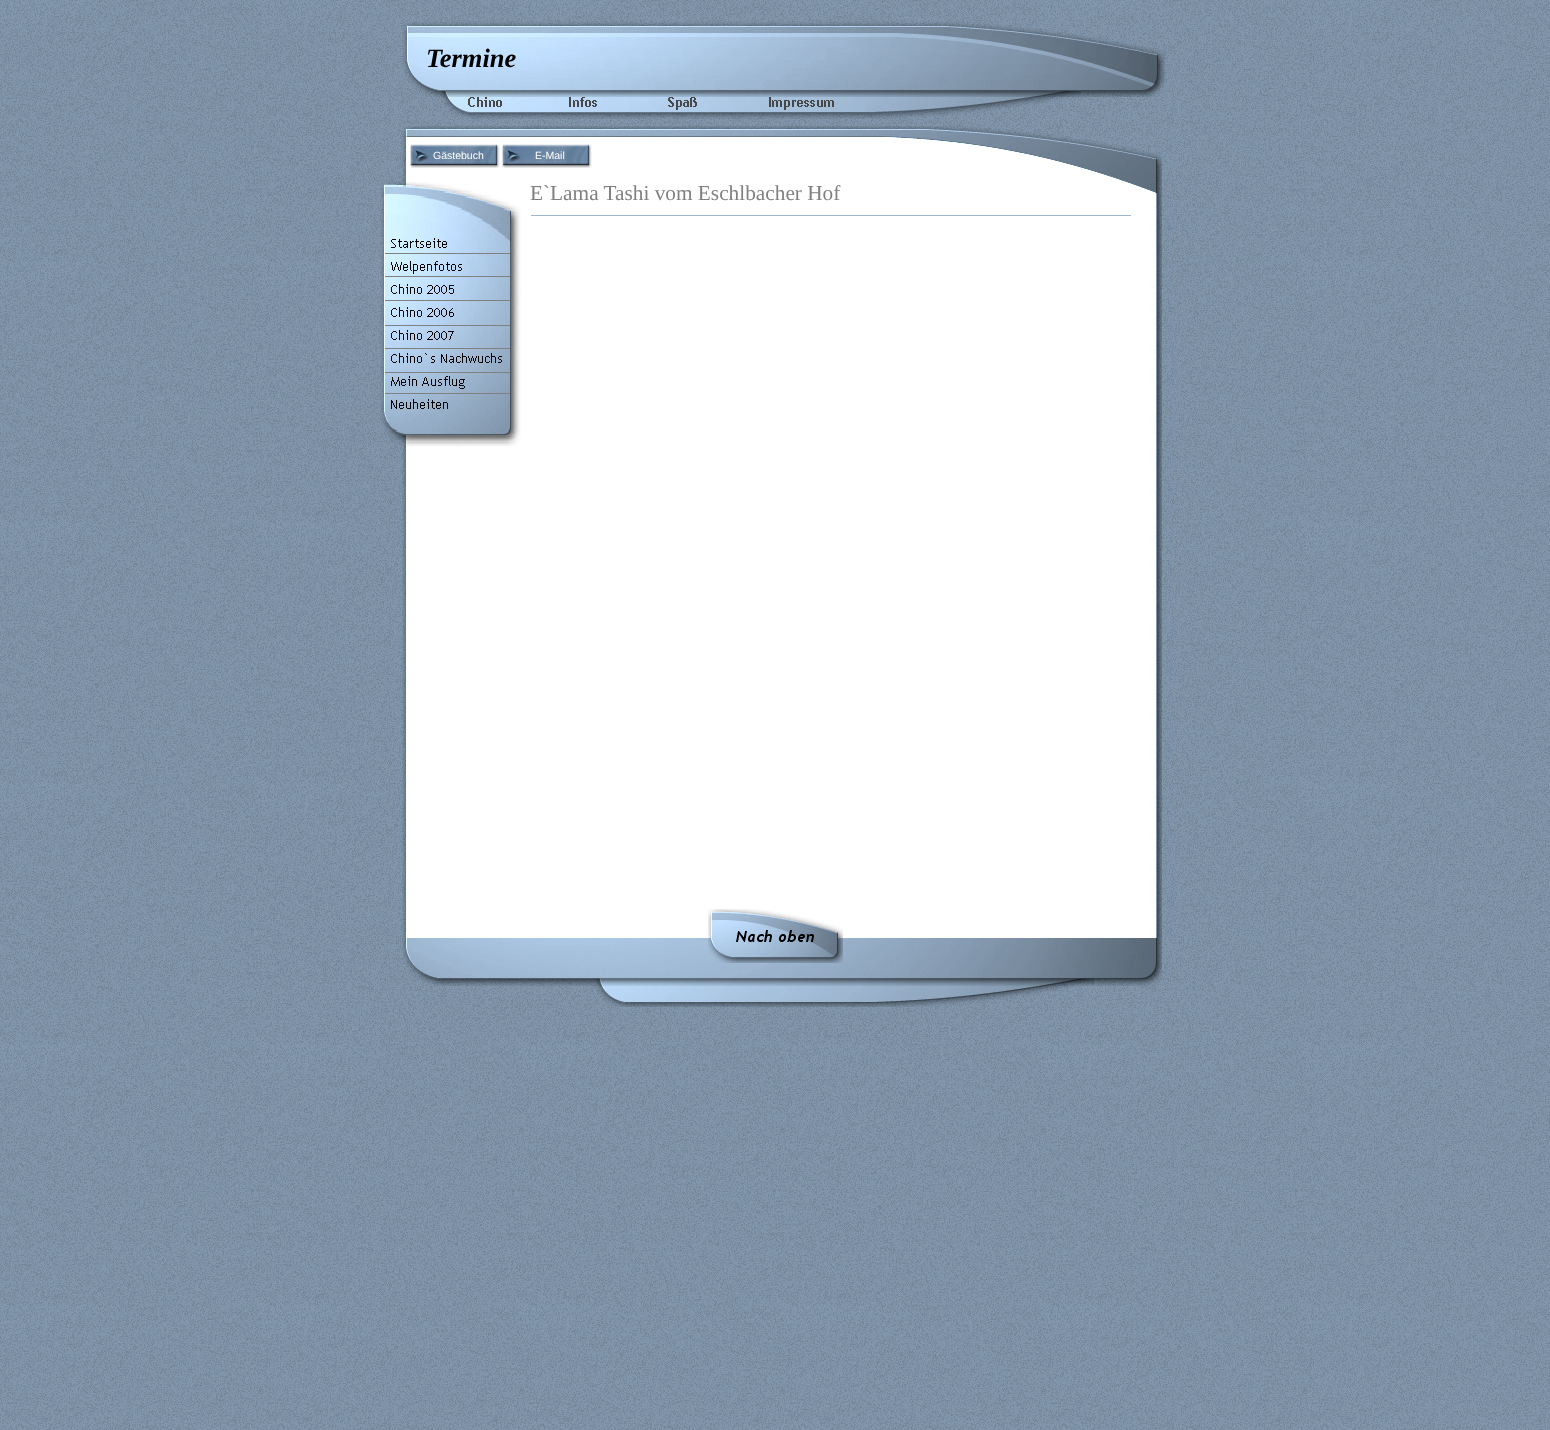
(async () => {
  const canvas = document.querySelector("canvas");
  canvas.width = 1550;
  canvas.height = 1430;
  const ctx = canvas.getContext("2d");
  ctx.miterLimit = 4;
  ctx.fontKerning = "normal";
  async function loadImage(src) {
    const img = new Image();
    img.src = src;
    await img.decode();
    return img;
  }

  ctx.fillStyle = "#ffffff";
  ctx.fillRect(0, 0, 1550, 1430);
  ctx.drawImage(await loadImage("img/1.png"), 0, 0, 1550, 1430);
  ctx.drawImage(await loadImage("img/2.png"), 395, 17, 770, 80);
  ctx.drawImage(await loadImage("img/3.png"), 441, 97, 640, 22);
  ctx.drawImage(await loadImage("img/4.png"), 468, 97, 34, 10);
  ctx.drawImage(await loadImage("img/5.png"), 569, 97, 28, 10);
  ctx.drawImage(await loadImage("img/6.png"), 668, 97, 29, 13);
  ctx.drawImage(await loadImage("img/7.png"), 769, 97, 65, 13);
  ctx.drawImage(await loadImage("img/8.png"), 402, 126, 760, 860);
  ctx.drawImage(await loadImage("img/9.png"), 410, 144, 90, 24);
  ctx.drawImage(await loadImage("img/10.png"), 502, 144, 90, 24);
  ctx.drawImage(await loadImage("img/11.png"), 375, 174, 146, 279);
  ctx.fillStyle = "#9eb8d1";
  ctx.fillRect(531, 215, 600, 1);
  ctx.drawImage(await loadImage("img/12.png"), 391, 238, 56, 10);
  ctx.drawImage(await loadImage("img/13.png"), 391, 261, 71, 13);
  ctx.drawImage(await loadImage("img/14.png"), 391, 284, 63, 10);
  ctx.drawImage(await loadImage("img/15.png"), 391, 307, 63, 10);
  ctx.drawImage(await loadImage("img/16.png"), 391, 330, 63, 10);
  ctx.drawImage(await loadImage("img/17.png"), 391, 353, 111, 10);
  ctx.drawImage(await loadImage("img/18.png"), 391, 376, 74, 13);
  ctx.drawImage(await loadImage("img/19.png"), 391, 399, 57, 10);
  for (const [x, y, w, h, color] of [
    [385, 253, 125, 1, "#808080"],
    [385, 276, 125, 1, "#808080"],
    [385, 300, 125, 1, "#808080"],
    [385, 325, 125, 1, "#808080"],
    [385, 348, 125, 1, "#808080"],
    [385, 372, 125, 1, "#808080"],
    [385, 393, 125, 1, "#808080"],
  ]) {
    ctx.fillStyle = color;
    ctx.fillRect(x, y, w, h);
  }
  ctx.drawImage(await loadImage("img/20.png"), 708, 909, 135, 54);
  ctx.drawImage(await loadImage("img/21.png"), 594, 986, 500, 21);
  ctx.font = "italic bold 26.5px Liberation Serif";
  ctx.fillStyle = "#000000";
  ctx.fillText("Termine", 426, 67);
  ctx.font = "10.5px Liberation Sans";
  ctx.fillStyle = "#ffffff";
  ctx.fillText("Gästebuch", 433, 159);
  ctx.fillText("E-Mail", 535, 159);
  ctx.font = "21.3px Liberation Serif";
  ctx.fillStyle = "#808080";
  ctx.fillText("E`Lama Tashi vom Eschlbacher Hof", 530, 200);
})();
